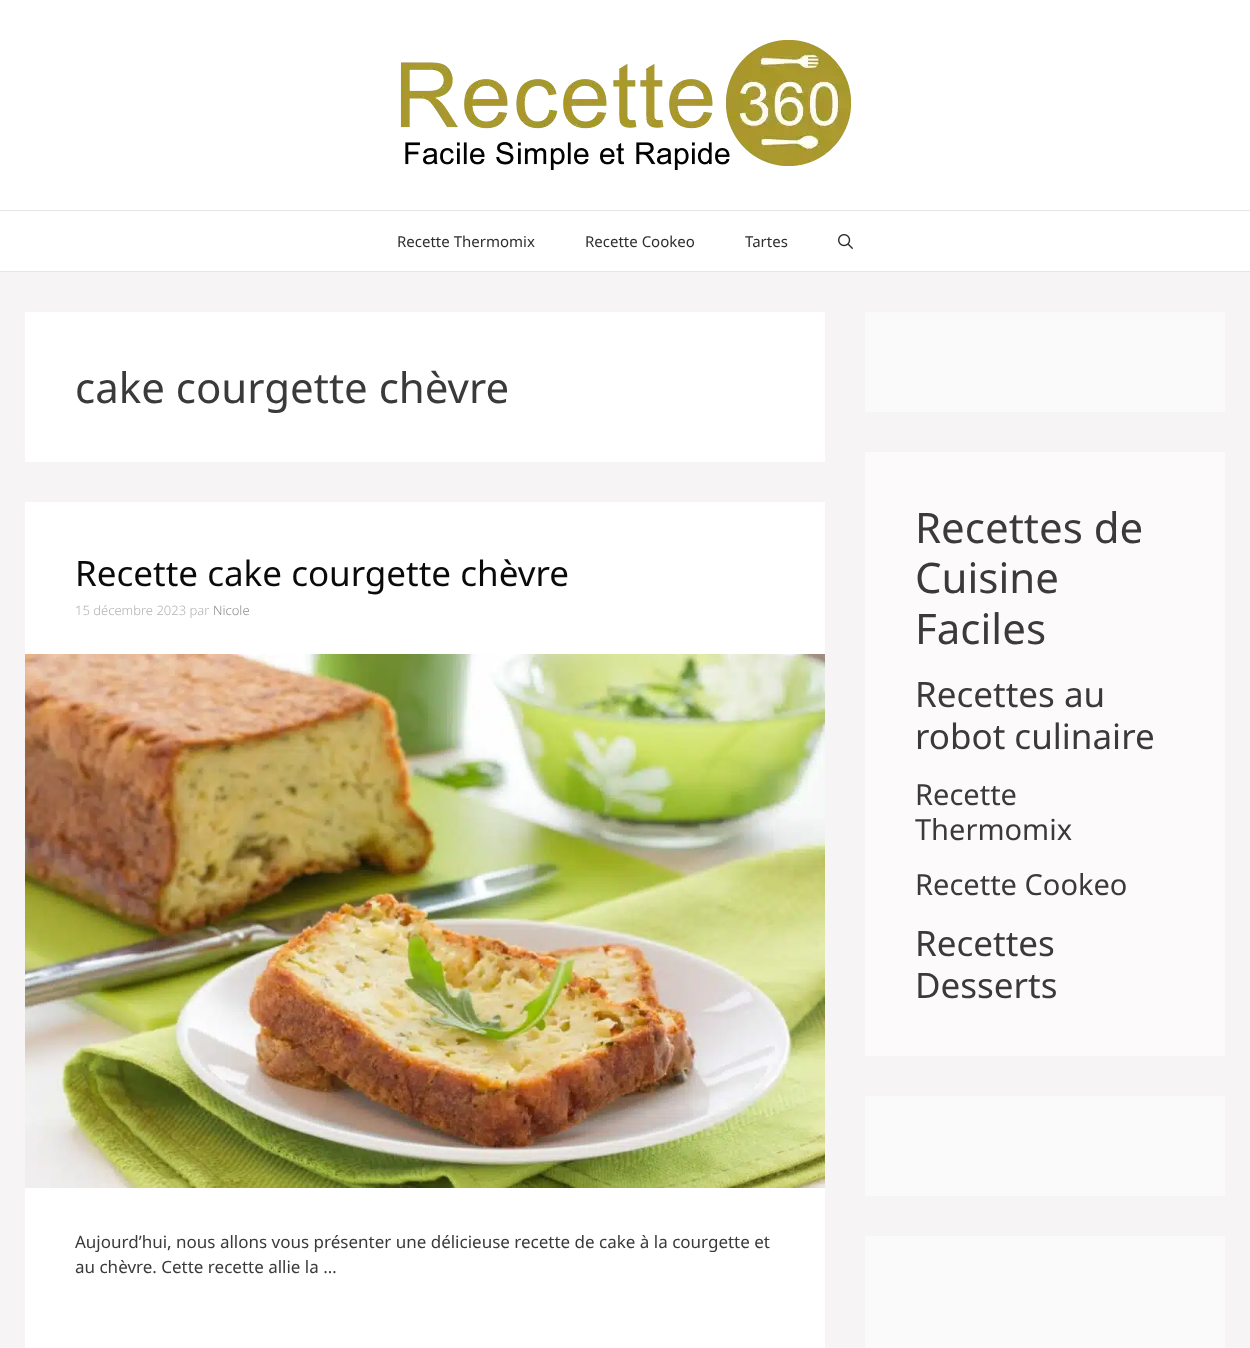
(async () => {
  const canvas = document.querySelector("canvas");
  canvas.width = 1250;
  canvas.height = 1348;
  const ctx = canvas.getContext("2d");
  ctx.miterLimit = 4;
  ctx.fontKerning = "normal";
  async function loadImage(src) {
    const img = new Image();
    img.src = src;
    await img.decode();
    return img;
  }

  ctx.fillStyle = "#f7f4f6";
  ctx.fillRect(0, 0, 1250, 1348);
  ctx.fillStyle = "#ffffff";
  ctx.fillRect(0, 0, 1250, 210);
  ctx.drawImage(await loadImage("img/1.png"), 400, 40, 451, 130);
  for (const [x, y, w, h, color] of [
    [0, 211, 1250, 60, "#ffffff"],
    [0, 210, 1250, 1, "#e6e6e6"],
    [0, 271, 1250, 1, "#e6e6e6"],
  ]) {
    ctx.fillStyle = color;
    ctx.fillRect(x, y, w, h);
  }
  ctx.drawImage(await loadImage("img/2.png"), 838, 234, 15, 15);
  ctx.fillStyle = "#ffffff";
  ctx.fillRect(25, 312, 800, 150);
  ctx.fillRect(25, 502, 800, 846);
  ctx.drawImage(await loadImage("img/3.png"), 25, 654, 800, 534);
  for (const [x, y, w, h, color] of [
    [865, 312, 360, 100, "#fbfafb"],
    [865, 452, 360, 604, "#fcfafb"],
    [865, 1096, 360, 100, "#fbfafb"],
    [865, 1236, 360, 112, "#fbfafb"],
  ]) {
    ctx.fillStyle = color;
    ctx.fillRect(x, y, w, h);
  }
  ctx.font = "15px Noto Sans";
  ctx.fillStyle = "#2d2d2d";
  for (const [text, x, y] of [
    ["Recette Thermomix", 397, 247],
    ["Recette Cookeo", 585, 247],
    ["Tartes", 745, 247],
  ]) {
    ctx.fillText(text, x, y);
  }
  ctx.font = "42px Noto Sans";
  ctx.fillStyle = "#3a3a3a";
  ctx.fillText("cake courgette chèvre", 75, 403);
  ctx.font = "35px Noto Sans";
  ctx.fillStyle = "#0a0a0a";
  ctx.fillText("Recette cake courgette chèvre", 75, 586);
  ctx.font = "300 13px Noto Sans";
  ctx.fillStyle = "#b2b2b2";
  ctx.fillText("15 décembre 2023 par", 75, 615);
  ctx.fillStyle = "#8e8e8e";
  ctx.fillText("Nicole", 213, 615);
  ctx.font = "17px Noto Sans";
  ctx.fillStyle = "#3a3a3a";
  ctx.fillText("Aujourd’hui, nous allons vous présenter une délicieuse recette de cake à la courgette et", 75, 1248);
  ctx.fillText("au chèvre. Cette recette allie la …", 75, 1273);
  ctx.font = "42px Noto Sans";
  for (const [text, x, y] of [
    ["Recettes de", 915, 543],
    ["Cuisine", 915, 593],
    ["Faciles", 915, 644],
  ]) {
    ctx.fillText(text, x, y);
  }
  ctx.font = "35px Noto Sans";
  ctx.fillText("Recettes au", 915, 707);
  ctx.fillText("robot culinaire", 915, 749);
  ctx.font = "29px Noto Sans";
  for (const [text, x, y] of [
    ["Recette", 915, 805],
    ["Thermomix", 915, 840],
    ["Recette Cookeo", 915, 895],
  ]) {
    ctx.fillText(text, x, y);
  }
  ctx.font = "35px Noto Sans";
  ctx.fillText("Recettes", 915, 956);
  ctx.fillText("Desserts", 915, 998);
})();
